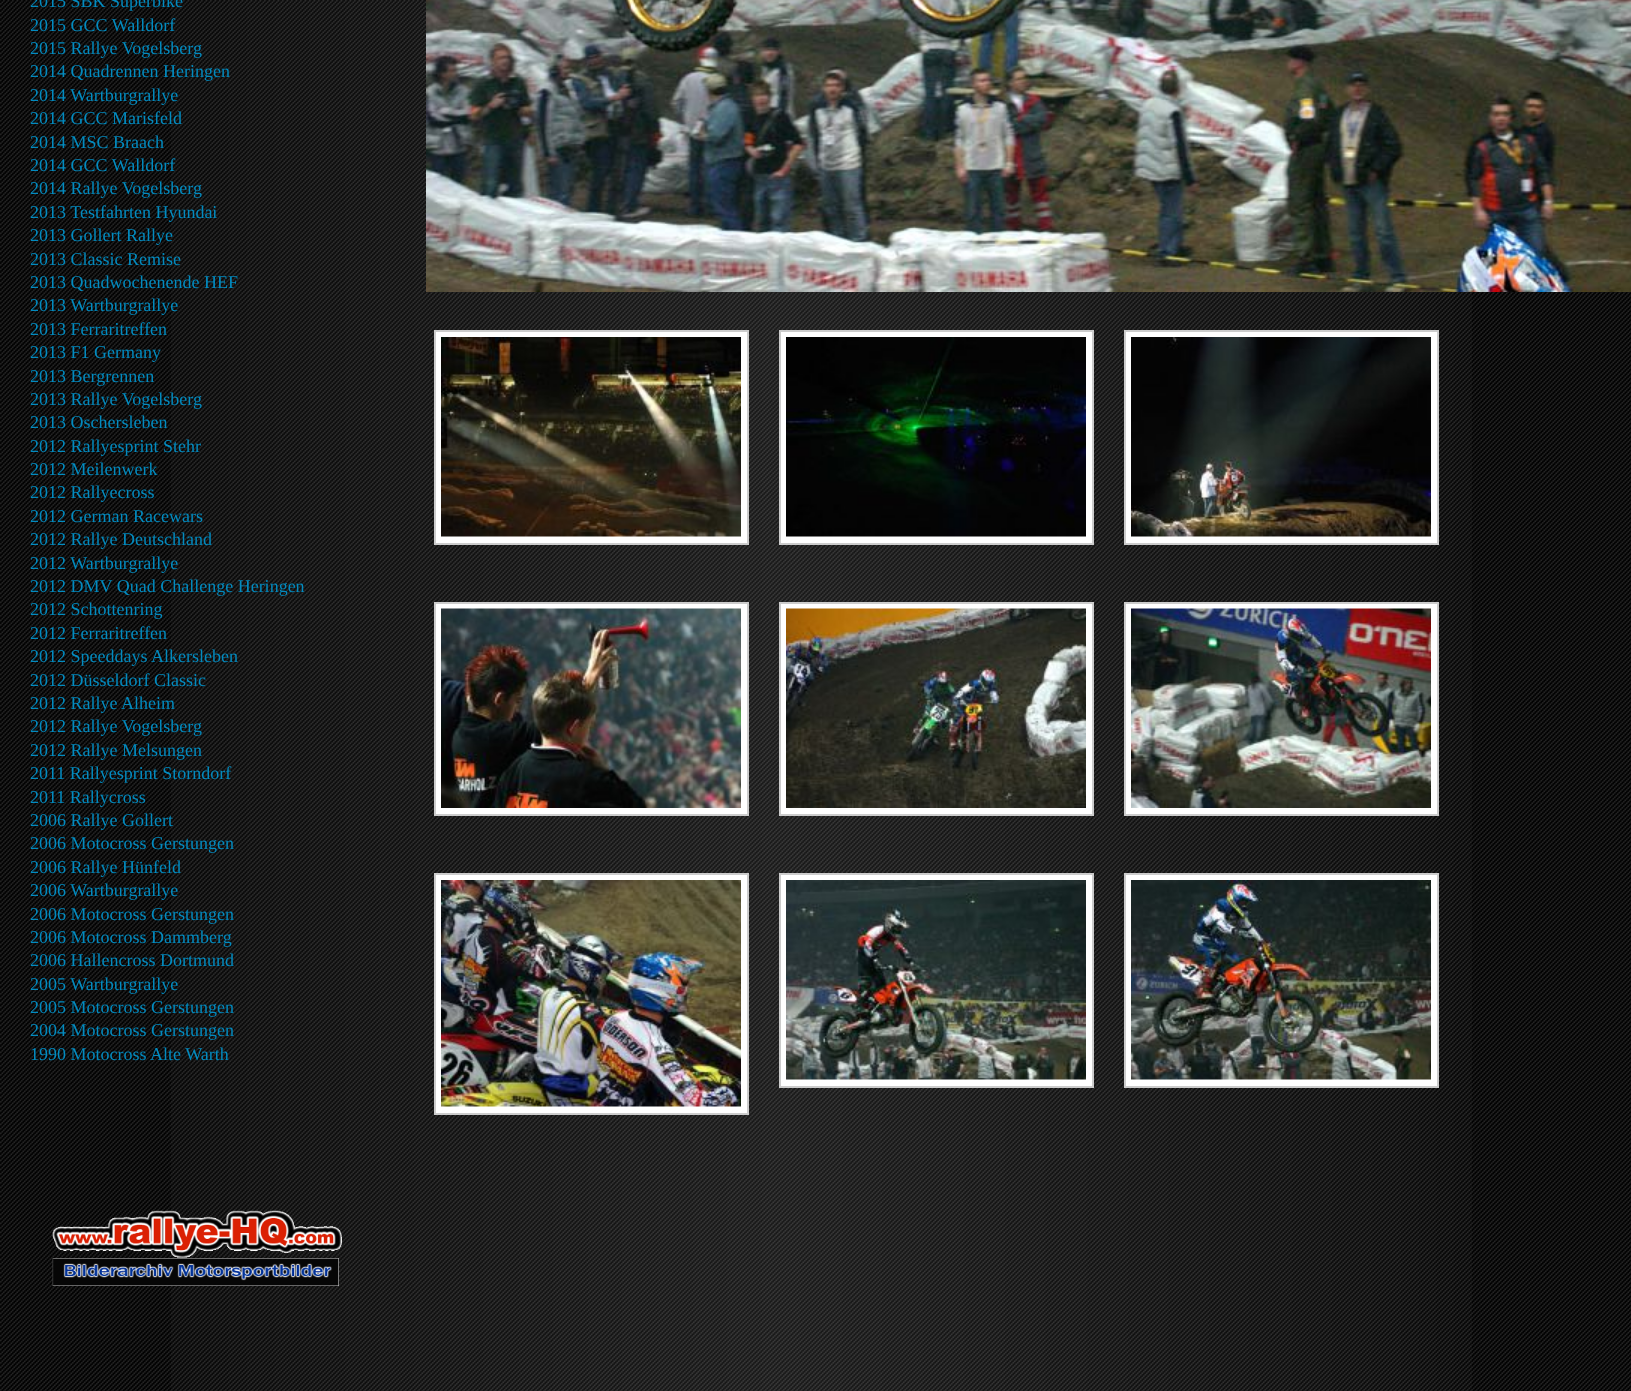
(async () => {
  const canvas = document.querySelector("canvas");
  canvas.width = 1631;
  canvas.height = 1391;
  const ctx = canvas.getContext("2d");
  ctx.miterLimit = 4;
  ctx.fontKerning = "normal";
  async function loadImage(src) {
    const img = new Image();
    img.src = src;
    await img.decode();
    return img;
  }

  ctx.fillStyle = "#000000";
  ctx.fillRect(0, 0, 1631, 1391);
  ctx.drawImage(await loadImage("img/1.png"), 0, 0, 1631, 1391);
  ctx.drawImage(await loadImage("img/2.png"), 171, 0, 1301, 1391);
  ctx.drawImage(await loadImage("img/3.png"), 52, 1210, 290, 76);
  ctx.drawImage(await loadImage("img/4.png"), 426, 0, 1205, 292);
  ctx.fillStyle = "#ffffff";
  ctx.beginPath();
  ctx.rect(435, 331, 313, 213);
  ctx.fill();
  ctx.strokeStyle = "#cccccc";
  ctx.lineWidth = 2;
  ctx.stroke();
  ctx.drawImage(await loadImage("img/5.png"), 441, 337, 300, 200);
  ctx.beginPath();
  ctx.rect(780, 331, 313, 213);
  ctx.fill();
  ctx.stroke();
  ctx.drawImage(await loadImage("img/6.png"), 786, 337, 300, 200);
  ctx.beginPath();
  ctx.rect(1125, 331, 313, 213);
  ctx.fill();
  ctx.stroke();
  ctx.drawImage(await loadImage("img/7.png"), 1131, 337, 300, 200);
  ctx.beginPath();
  ctx.rect(435, 603, 313, 212);
  ctx.fill();
  ctx.stroke();
  ctx.drawImage(await loadImage("img/8.png"), 441, 608, 300, 200);
  ctx.beginPath();
  ctx.rect(780, 603, 313, 212);
  ctx.fill();
  ctx.stroke();
  ctx.drawImage(await loadImage("img/9.png"), 786, 608, 300, 200);
  ctx.beginPath();
  ctx.rect(1125, 603, 313, 212);
  ctx.fill();
  ctx.stroke();
  ctx.drawImage(await loadImage("img/10.png"), 1131, 608, 300, 200);
  ctx.beginPath();
  ctx.rect(435, 874, 313, 240);
  ctx.fill();
  ctx.stroke();
  ctx.drawImage(await loadImage("img/11.png"), 441, 880, 300, 227);
  ctx.beginPath();
  ctx.rect(780, 874, 313, 213);
  ctx.fill();
  ctx.stroke();
  ctx.drawImage(await loadImage("img/12.png"), 786, 880, 300, 200);
  ctx.beginPath();
  ctx.rect(1125, 874, 313, 213);
  ctx.fill();
  ctx.stroke();
  ctx.drawImage(await loadImage("img/13.png"), 1131, 880, 300, 200);
  ctx.font = "18px Liberation Serif";
  ctx.fillStyle = "#028bc0";
  for (const [text, x, y] of [
    ["2015 SBK Superbike", 30, 7],
    ["2015 GCC Walldorf", 30, 31],
    ["2015 Rallye Vogelsberg", 30, 54],
    ["2014 Quadrennen Heringen", 30, 77],
    ["2014 Wartburgrallye", 30, 101],
    ["2014 GCC Marisfeld", 30, 124],
    ["2014 MSC Braach", 30, 148],
    ["2014 GCC Walldorf", 30, 171],
    ["2014 Rallye Vogelsberg", 30, 194],
    ["2013 Testfahrten Hyundai", 30, 218],
    ["2013 Gollert Rallye", 30, 241],
    ["2013 Classic Remise", 30, 265],
    ["2013 Quadwochenende HEF", 30, 288],
    ["2013 Wartburgrallye", 30, 311],
    ["2013 Ferraritreffen", 30, 335],
    ["2013 F1 Germany", 30, 358],
    ["2013 Bergrennen", 30, 382],
    ["2013 Rallye Vogelsberg", 30, 405],
    ["2013 Oschersleben", 30, 428],
    ["2012 Rallyesprint Stehr", 30, 452],
    ["2012 Meilenwerk", 30, 475],
    ["2012 Rallyecross", 30, 498],
    ["2012 German Racewars", 30, 522],
    ["2012 Rallye Deutschland", 30, 545],
    ["2012 Wartburgrallye", 30, 569],
    ["2012 DMV Quad Challenge Heringen", 30, 592],
    ["2012 Schottenring", 30, 615],
    ["2012 Ferraritreffen", 30, 639],
    ["2012 Speeddays Alkersleben", 30, 662],
    ["2012 Düsseldorf Classic", 30, 686],
    ["2012 Rallye Alheim", 30, 709],
    ["2012 Rallye Vogelsberg", 30, 732],
    ["2012 Rallye Melsungen", 30, 756],
    ["2011 Rallyesprint Storndorf", 30, 779],
    ["2011 Rallycross", 30, 803],
    ["2006 Rallye Gollert", 30, 826],
    ["2006 Motocross Gerstungen", 30, 849],
    ["2006 Rallye Hünfeld", 30, 873],
    ["2006 Wartburgrallye", 30, 896],
    ["2006 Motocross Gerstungen", 30, 920],
    ["2006 Motocross Dammberg", 30, 943],
    ["2006 Hallencross Dortmund", 30, 966],
    ["2005 Wartburgrallye", 30, 990],
    ["2005 Motocross Gerstungen", 30, 1013],
    ["2004 Motocross Gerstungen", 30, 1036],
    ["1990 Motocross Alte Warth", 30, 1060],
  ]) {
    ctx.fillText(text, x, y);
  }
})();
